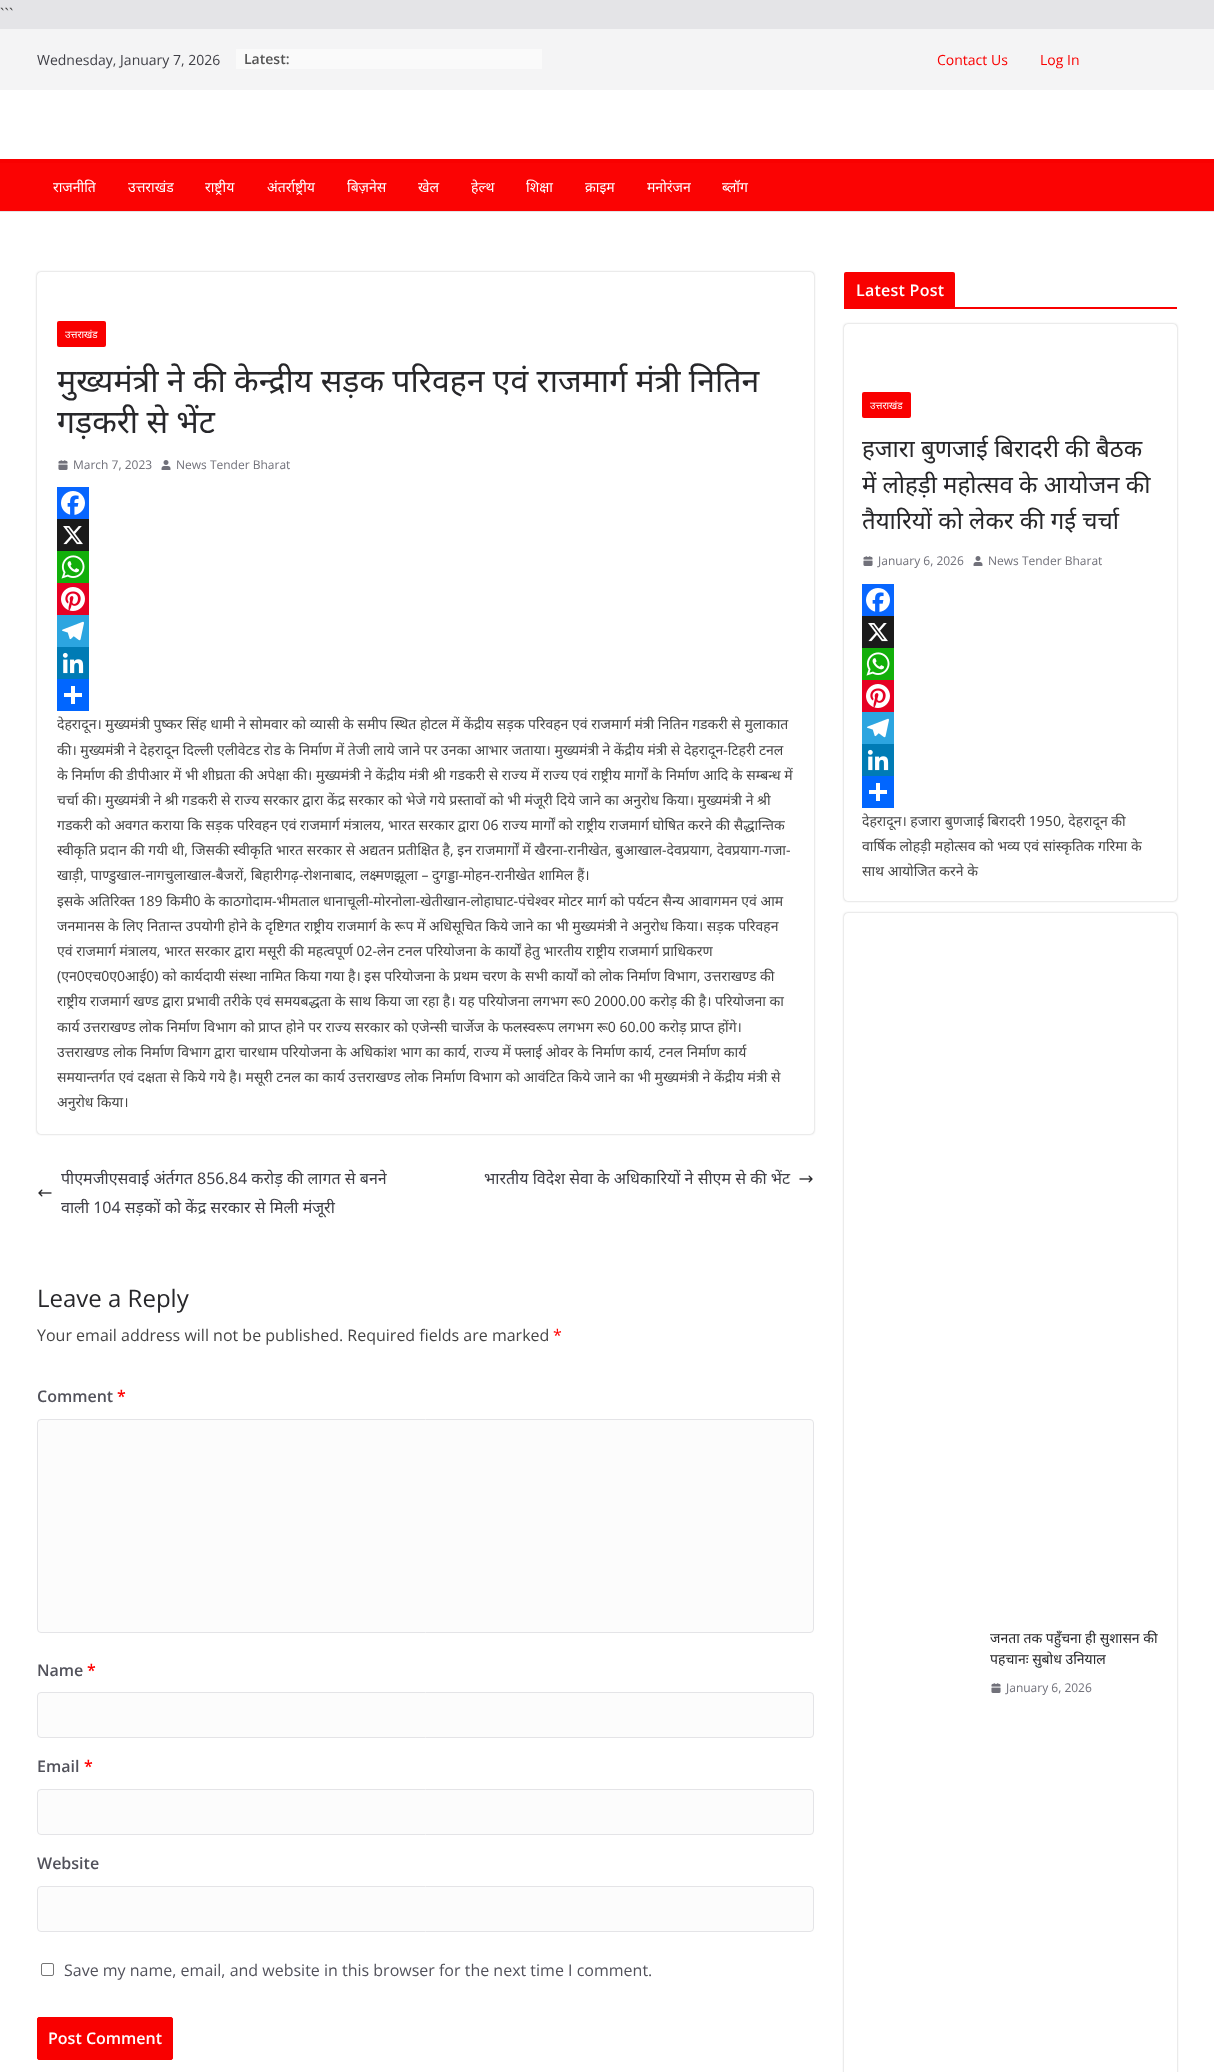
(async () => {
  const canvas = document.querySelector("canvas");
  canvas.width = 1214;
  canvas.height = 2072;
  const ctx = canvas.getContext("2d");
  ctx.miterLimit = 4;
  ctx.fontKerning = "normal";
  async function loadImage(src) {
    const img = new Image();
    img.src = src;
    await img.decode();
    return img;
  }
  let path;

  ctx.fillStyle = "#e4e4e7";
  ctx.fillRect(0, 0, 1214, 2072);
  for (const [x, y, w, h, color] of [
    [0, 90, 1214, 69, "#ffffff"],
    [0, 29, 1214, 61, "#f4f4f5"],
    [236, 49, 306, 20, "#fafafa"],
    [0, 163, 1214, 48, "#fb0303"],
    [0, 159, 1214, 4, "#f90000"],
    [0, 212, 1214, 1860, "#ffffff"],
  ]) {
    ctx.fillStyle = color;
    ctx.fillRect(x, y, w, h);
  }
  ctx.save();
  path = new Path2D("M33 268H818V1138H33ZM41 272H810C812 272 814 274 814 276V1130C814 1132 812 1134 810 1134H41C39 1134 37 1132 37 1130V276C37 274 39 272 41 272Z");
  ctx.clip(path, "evenodd");
  ctx.fillStyle = "rgba(0, 0, 0, 0.24)";
  ctx.filter = "blur(1px)";
  ctx.beginPath();
  ctx.roundRect(37, 272, 777, 862, 4);
  ctx.fill();
  ctx.filter = "none";
  ctx.restore();
  ctx.fillStyle = "#f90000";
  ctx.beginPath();
  ctx.roundRect(57, 321, 49, 26, 2);
  ctx.fill();
  ctx.drawImage(await loadImage("img/1.png"), 58, 460, 10, 10);
  ctx.drawImage(await loadImage("img/2.png"), 161, 460, 10, 10);
  ctx.fillStyle = "#0866ff";
  ctx.fillRect(57, 487, 32, 32);
  ctx.drawImage(await loadImage("img/3.png"), 61, 491, 24, 24);
  ctx.fillStyle = "#1a1a1a";
  ctx.fillRect(57, 519, 32, 32);
  ctx.drawImage(await loadImage("img/4.png"), 63, 526, 20, 19);
  ctx.fillStyle = "#12af0a";
  ctx.fillRect(57, 551, 32, 32);
  ctx.drawImage(await loadImage("img/5.png"), 61, 555, 24, 24);
  ctx.fillStyle = "#e60023";
  ctx.fillRect(57, 583, 32, 32);
  ctx.drawImage(await loadImage("img/6.png"), 61, 587, 24, 24);
  ctx.fillStyle = "#2ca5e0";
  ctx.fillRect(57, 615, 32, 32);
  ctx.drawImage(await loadImage("img/7.png"), 62, 621, 22, 20);
  ctx.fillStyle = "#007bb5";
  ctx.fillRect(57, 647, 32, 32);
  ctx.drawImage(await loadImage("img/8.png"), 62, 652, 22, 22);
  for (const [x, y, w, h, color] of [
    [57, 679, 32, 32, "#0166ff"],
    [71, 686, 4, 18, "#ffffff"],
    [64, 693, 18, 4, "#ffffff"],
  ]) {
    ctx.fillStyle = color;
    ctx.fillRect(x, y, w, h);
  }
  ctx.drawImage(await loadImage("img/9.png"), 38, 1189, 14, 8);
  ctx.drawImage(await loadImage("img/10.png"), 799, 1175, 14, 8);
  ctx.fillStyle = "#fcfcfc";
  ctx.beginPath();
  ctx.roundRect(37.5, 1419.5, 776, 213, 3.5);
  ctx.fill();
  ctx.strokeStyle = "#e4e4e7";
  ctx.stroke();
  ctx.beginPath();
  ctx.roundRect(37.5, 1692.5, 776, 45, 3.5);
  ctx.fill();
  ctx.stroke();
  ctx.beginPath();
  ctx.roundRect(37.5, 1789.5, 776, 45, 3.5);
  ctx.fill();
  ctx.stroke();
  ctx.beginPath();
  ctx.roundRect(37.5, 1886.5, 776, 45, 3.5);
  ctx.fill();
  ctx.stroke();
  ctx.beginPath();
  ctx.roundRect(41.5, 1963.5, 12, 12, 1.5);
  ctx.strokeStyle = "#767676";
  ctx.stroke();
  ctx.fillStyle = "#f90000";
  ctx.beginPath();
  ctx.roundRect(37.5, 2017.5, 135, 42, 1.5);
  ctx.fill();
  ctx.strokeStyle = "#f90000";
  ctx.stroke();
  ctx.fillRect(844, 307, 333, 2);
  ctx.beginPath();
  ctx.roundRect(844, 272, 111, 35, [2, 2, 0, 0]);
  ctx.fill();
  ctx.save();
  path = new Path2D("M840 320H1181V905H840ZM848 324H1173C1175 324 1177 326 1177 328V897C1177 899 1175 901 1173 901H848C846 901 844 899 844 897V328C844 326 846 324 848 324Z");
  ctx.clip(path, "evenodd");
  ctx.fillStyle = "rgba(0, 0, 0, 0.24)";
  ctx.filter = "blur(1px)";
  ctx.beginPath();
  ctx.roundRect(844, 324, 333, 577, 4);
  ctx.fill();
  ctx.filter = "none";
  ctx.restore();
  ctx.beginPath();
  ctx.roundRect(862, 392, 49, 26, 2);
  ctx.fill();
  ctx.drawImage(await loadImage("img/1.png"), 863, 556, 10, 10);
  ctx.drawImage(await loadImage("img/2.png"), 973, 556, 10, 10);
  ctx.fillStyle = "#0866ff";
  ctx.fillRect(862, 584, 32, 32);
  ctx.drawImage(await loadImage("img/3.png"), 866, 588, 24, 24);
  ctx.fillStyle = "#1a1a1a";
  ctx.fillRect(862, 616, 32, 32);
  ctx.drawImage(await loadImage("img/4.png"), 868, 623, 20, 19);
  ctx.fillStyle = "#12af0a";
  ctx.fillRect(862, 648, 32, 32);
  ctx.drawImage(await loadImage("img/5.png"), 866, 652, 24, 24);
  ctx.fillStyle = "#e60023";
  ctx.fillRect(862, 680, 32, 32);
  ctx.drawImage(await loadImage("img/6.png"), 866, 684, 24, 24);
  ctx.fillStyle = "#2ca5e0";
  ctx.fillRect(862, 712, 32, 32);
  ctx.drawImage(await loadImage("img/7.png"), 867, 718, 22, 20);
  ctx.fillStyle = "#007bb5";
  ctx.fillRect(862, 744, 32, 32);
  ctx.drawImage(await loadImage("img/8.png"), 867, 749, 22, 22);
  for (const [x, y, w, h, color] of [
    [862, 776, 32, 32, "#0166ff"],
    [876, 783, 4, 18, "#ffffff"],
    [869, 790, 18, 4, "#ffffff"],
  ]) {
    ctx.fillStyle = color;
    ctx.fillRect(x, y, w, h);
  }
  ctx.save();
  path = new Path2D("M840 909H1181V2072H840ZM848 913H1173C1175 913 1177 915 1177 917V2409C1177 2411 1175 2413 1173 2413H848C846 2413 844 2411 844 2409V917C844 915 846 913 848 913Z");
  ctx.clip(path, "evenodd");
  ctx.fillStyle = "rgba(0, 0, 0, 0.24)";
  ctx.filter = "blur(1px)";
  ctx.beginPath();
  ctx.roundRect(844, 913, 333, 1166, 4);
  ctx.fill();
  ctx.filter = "none";
  ctx.restore();
  ctx.drawImage(await loadImage("img/1.png"), 991, 1683, 10, 10);
  ctx.font = "16px Open Sans";
  ctx.fillStyle = "#454545";
  ctx.fillText("```", 0, 20);
  ctx.font = "14px Open Sans";
  ctx.fillStyle = "#3f3f46";
  ctx.fillText("Wednesday, January 7, 2026", 37, 65);
  ctx.font = "600 14px Open Sans";
  ctx.fillStyle = "#555555";
  ctx.fillText("Latest:", 244, 64);
  ctx.font = "14px Open Sans";
  ctx.fillStyle = "#f90000";
  ctx.fillText("Contact Us", 937, 65);
  ctx.fillText("Log In", 1040, 65);
  ctx.font = "14px Noto Sans";
  ctx.fillStyle = "#ffffff";
  for (const [text, x, y] of [
    ["राजनीति", 53, 192],
    ["उत्तराखंड", 128, 192],
    ["राष्ट्रीय", 205, 192],
    ["अंतर्राष्ट्रीय", 267, 192],
    ["बिज़नेस", 347, 192],
    ["खेल", 418, 192],
    ["हेल्थ", 471, 192],
    ["शिक्षा", 526, 192],
    ["क्राइम", 585, 192],
    ["मनोरंजन", 647, 192],
    ["ब्लॉग", 722, 192],
  ]) {
    ctx.fillText(text, x, y);
  }
  ctx.font = "10px Noto Sans";
  ctx.fillText("उत्तराखंड", 65, 338);
  ctx.font = "32px Noto Sans";
  ctx.fillStyle = "#27272a";
  ctx.fillText("मुख्यमंत्री ने की केन्द्रीय सड़क परिवहन एवं राजमार्ग मंत्री नितिन", 57, 392);
  ctx.fillText("गड़करी से भेंट", 57, 433);
  ctx.font = "12px Open Sans";
  ctx.fillStyle = "#71717a";
  ctx.fillText("March 7, 2023", 73, 469);
  ctx.fillText("News Tender Bharat", 176, 469);
  ctx.font = "14px Noto Sans";
  ctx.fillStyle = "#454545";
  for (const [text, x, y] of [
    ["देहरादून। मुख्यमंत्री पुष्कर सिंह धामी ने सोमवार को व्यासी के समीप स्थित होटल में केंद्रीय सड़क परिवहन एवं राजमार्ग मंत्री नितिन गडकरी से मुलाकात", 57, 729],
    ["की। मुख्यमंत्री ने देहरादून दिल्ली एलीवेटड रोड के निर्माण में तेजी लाये जाने पर उनका आभार जताया। मुख्यमंत्री ने केंद्रीय मंत्री से देहरादून-टिहरी टनल", 57, 755],
    ["के निर्माण की डीपीआर में भी शीघ्रता की अपेक्षा की। मुख्यमंत्री ने केंद्रीय मंत्री श्री गडकरी से राज्य में राज्य एवं राष्ट्रीय मार्गों के निर्माण आदि के सम्बन्ध में", 57, 780],
    ["चर्चा की। मुख्यमंत्री ने श्री गडकरी से राज्य सरकार द्वारा केंद्र सरकार को भेजे गये प्रस्तावों को भी मंजूरी दिये जाने का अनुरोध किया। मुख्यमंत्री ने श्री", 57, 805],
    ["गडकरी को अवगत कराया कि सड़क परिवहन एवं राजमार्ग मंत्रालय, भारत सरकार द्वारा 06 राज्य मार्गों को राष्ट्रीय राजमार्ग घोषित करने की सैद्धान्तिक", 57, 830],
    ["स्वीकृति प्रदान की गयी थी, जिसकी स्वीकृति भारत सरकार से अद्यतन प्रतीक्षित है, इन राजमार्गों में खैरना-रानीखेत, बुआखाल-देवप्रयाग, देवप्रयाग-गजा-", 57, 855],
    ["खाड़ी, पाण्डुखाल-नागचुलाखाल-बैजरों, बिहारीगढ़-रोशनाबाद, लक्ष्मणझूला – दुगड्डा-मोहन-रानीखेत शामिल हैं।", 57, 880],
    ["इसके अतिरिक्त 189 किमी0 के काठगोदाम-भीमताल धानाचूली-मोरनोला-खेतीखान-लोहाघाट-पंचेश्वर मोटर मार्ग को पर्यटन सैन्य आवागमन एवं आम", 57, 906],
    ["जनमानस के लिए नितान्त उपयोगी होने के दृष्टिगत राष्ट्रीय राजमार्ग के रूप में अधिसूचित किये जाने का भी मुख्यमंत्री ने अनुरोध किया। सड़क परिवहन", 57, 931],
    ["एवं राजमार्ग मंत्रालय, भारत सरकार द्वारा मसूरी की महत्वपूर्ण 02-लेन टनल परियोजना के कार्यों हेतु भारतीय राष्ट्रीय राजमार्ग प्राधिकरण", 57, 956],
    ["(एन0एच0ए0आई0) को कार्यदायी संस्था नामित किया गया है। इस परियोजना के प्रथम चरण के सभी कार्यों को लोक निर्माण विभाग, उत्तराखण्ड की", 57, 981],
    ["राष्ट्रीय राजमार्ग खण्ड द्वारा प्रभावी तरीके एवं समयबद्धता के साथ किया जा रहा है। यह परियोजना लगभग रू0 2000.00 करोड़ की है। परियोजना का", 57, 1006],
    ["कार्य उत्तराखण्ड लोक निर्माण विभाग को प्राप्त होने पर राज्य सरकार को एजेन्सी चार्जेज के फलस्वरूप लगभग रू0 60.00 करोड़ प्राप्त होंगे।", 57, 1032],
    ["उत्तराखण्ड लोक निर्माण विभाग द्वारा चारधाम परियोजना के अधिकांश भाग का कार्य, राज्य में फ्लाई ओवर के निर्माण कार्य, टनल निर्माण कार्य", 57, 1057],
    ["समयान्तर्गत एवं दक्षता से किये गये है। मसूरी टनल का कार्य उत्तराखण्ड लोक निर्माण विभाग को आवंटित किये जाने का भी मुख्यमंत्री ने केंद्रीय मंत्री से", 57, 1082],
    ["अनुरोध किया।", 57, 1107],
  ]) {
    ctx.fillText(text, x, y);
  }
  ctx.font = "16px Noto Sans";
  ctx.fillStyle = "#3f3f46";
  for (const [text, x, y] of [
    ["पीएमजीएसवाई अंर्तगत 856.84 करोड़ की लागत से बनने", 61, 1184],
    ["वाली 104 सड़कों को केंद्र सरकार से मिली मंजूरी", 61, 1213],
    ["भारतीय विदेश सेवा के अधिकारियों ने सीएम से की भेंट", 484, 1184],
  ]) {
    ctx.fillText(text, x, y);
  }
  ctx.font = "24px 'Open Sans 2'";
  ctx.fillStyle = "#27272a";
  ctx.fillText("Leave a Reply", 37, 1307);
  ctx.font = "16px Open Sans";
  ctx.fillStyle = "#454545";
  ctx.fillText("Your email address will not be published. Required fields are marked", 37, 1341);
  ctx.fillStyle = "#ff0000";
  ctx.fillText("*", 553, 1341);
  ctx.font = "600 16px Open Sans";
  ctx.fillStyle = "#52525b";
  ctx.fillText("Comment", 37, 1402);
  ctx.fillStyle = "#ff0000";
  ctx.fillText("*", 117, 1402);
  ctx.fillStyle = "#52525b";
  ctx.fillText("Name", 37, 1676);
  ctx.fillStyle = "#ff0000";
  ctx.fillText("*", 87, 1676);
  ctx.fillStyle = "#52525b";
  ctx.fillText("Email", 37, 1772);
  ctx.fillStyle = "#ff0000";
  ctx.fillText("*", 84, 1772);
  ctx.fillStyle = "#52525b";
  ctx.fillText("Website", 37, 1869);
  ctx.font = "16px Open Sans";
  ctx.fillText("Save my name, email, and website in this browser for the next time I comment.", 64, 1976);
  ctx.font = "600 16px Open Sans";
  ctx.fillStyle = "#ffffff";
  ctx.fillText("Post Comment", 48, 2044);
  ctx.letterSpacing = "0.25px";
  ctx.fillText("Latest Post", 856, 296);
  ctx.letterSpacing = "0px";
  ctx.font = "10px Noto Sans";
  ctx.fillText("उत्तराखंड", 870, 409);
  ctx.font = "24px Noto Sans";
  ctx.fillStyle = "#27272a";
  for (const [text, x, y] of [
    ["हजारा बुणजाई बिरादरी की बैठक", 862, 457],
    ["में लोहड़ी महोत्सव के आयोजन की", 862, 493],
    ["तैयारियों को लेकर की गई चर्चा", 862, 529],
  ]) {
    ctx.fillText(text, x, y);
  }
  ctx.font = "12px Open Sans";
  ctx.fillStyle = "#71717a";
  ctx.fillText("January 6, 2026", 878, 565);
  ctx.fillText("News Tender Bharat", 988, 565);
  ctx.font = "14px Noto Sans";
  ctx.fillStyle = "#454545";
  for (const [text, x, y] of [
    ["देहरादून। हजारा बुणजाई बिरादरी 1950, देहरादून की", 862, 826],
    ["वार्षिक लोहड़ी महोत्सव को भव्य एवं सांस्कृतिक गरिमा के", 862, 851],
    ["साथ आयोजित करने के", 862, 876],
  ]) {
    ctx.fillText(text, x, y);
  }
  ctx.fillStyle = "#27272a";
  ctx.fillText("जनता तक पहुँचना ही सुशासन की", 990, 1643);
  ctx.fillText("पहचानः सुबोध उनियाल", 990, 1664);
  ctx.font = "12px Open Sans";
  ctx.fillStyle = "#71717a";
  ctx.fillText("January 6, 2026", 1006, 1692);
})();
